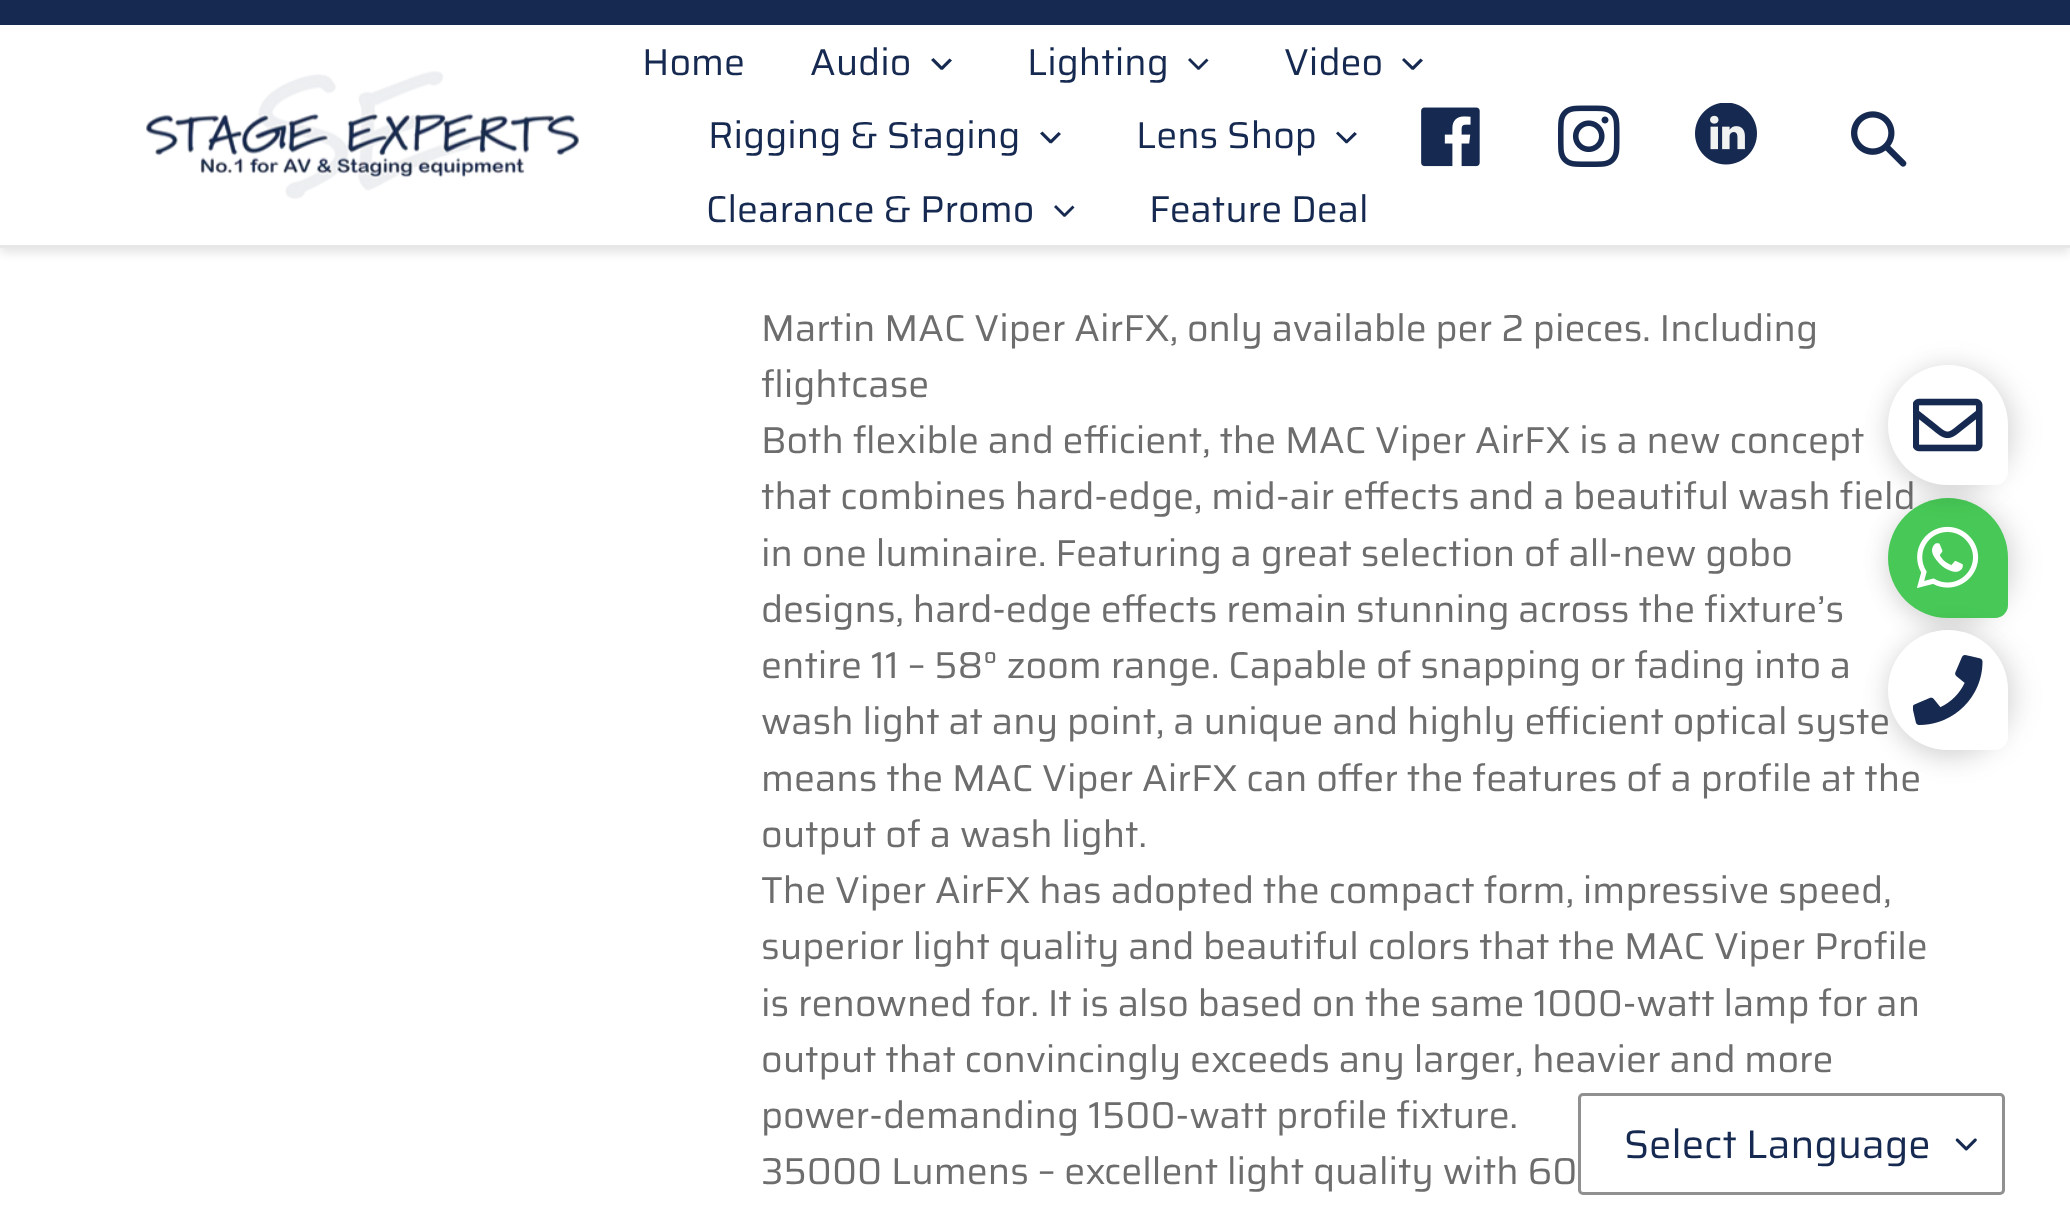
(async () => {
  const canvas = document.querySelector("canvas");
  canvas.width = 2070;
  canvas.height = 1229;
  const ctx = canvas.getContext("2d");
  ctx.miterLimit = 4;
  ctx.fontKerning = "normal";
  async function loadImage(src) {
    const img = new Image();
    img.src = src;
    await img.decode();
    return img;
  }
  let path;

  ctx.fillStyle = "#ffffff";
  ctx.fillRect(0, 0, 2070, 1229);
  ctx.fillStyle = "rgba(0, 0, 0, 0.1)";
  ctx.filter = "blur(5px)";
  ctx.beginPath();
  ctx.rect(0, 5, 2070, 248);
  ctx.fill();
  ctx.filter = "none";
  for (const [x, y, w, h, color] of [
    [0, 25, 2070, 220, "#ffffff"],
    [0, 0, 2070, 25, "#162950"],
    [0, 245, 2070, 3, "#e7e7e7"],
  ]) {
    ctx.fillStyle = color;
    ctx.fillRect(x, y, w, h);
  }
  ctx.drawImage(await loadImage("img/1.png"), 146, 71, 433, 128);
  ctx.fillStyle = "#162950";
  path = new Path2D("M949.5 58.5L952 60.5L942.5 70L940 68Z");
  ctx.fill(path);
  path = new Path2D("M933.5 58L943.5 68L941 70L931 60Z");
  ctx.fill(path);
  path = new Path2D("M1206.5 58.5L1208.5 60.5L1199 70L1197 68Z");
  ctx.fill(path);
  path = new Path2D("M1190 58L1200 68L1198 70L1188 60Z");
  ctx.fill(path);
  path = new Path2D("M1420.5 58.5L1423 60.5L1413.5 70L1411 68Z");
  ctx.fill(path);
  path = new Path2D("M1404 58L1414.5 68L1412 70L1402 60Z");
  ctx.fill(path);
  path = new Path2D("M1058.5 132L1061 134L1051.5 143.5L1049 141.5Z");
  ctx.fill(path);
  path = new Path2D("M1042.5 131.5L1052.5 141.5L1050 143.5L1040 133.5Z");
  ctx.fill(path);
  path = new Path2D("M1354.5 132L1357 134L1347 143.5L1345 141.5Z");
  ctx.fill(path);
  path = new Path2D("M1338 131.5L1348.5 141.5L1346 143.5L1336 133.5Z");
  ctx.fill(path);
  path = new Path2D("M1072.5 205.5L1074.5 207.5L1065 217L1063 215Z");
  ctx.fill(path);
  path = new Path2D("M1056 205L1066 215L1064 217L1054 207Z");
  ctx.fill(path);
  ctx.drawImage(await loadImage("img/2.png"), 1421, 107, 59, 60);
  ctx.drawImage(await loadImage("img/3.png"), 1558, 105, 62, 62);
  ctx.drawImage(await loadImage("img/4.png"), 1695, 103, 62, 62);
  ctx.drawImage(await loadImage("img/5.png"), 1851, 111, 56, 56);
  ctx.fillStyle = "rgba(0, 0, 0, 0.1)";
  ctx.filter = "blur(12.5px)";
  ctx.beginPath();
  ctx.roundRect(1888, 503, 120, 120, 60);
  ctx.fill();
  ctx.filter = "none";
  ctx.fillStyle = "rgba(0, 0, 0, 0.08)";
  ctx.filter = "blur(14px)";
  ctx.beginPath();
  ctx.roundRect(1888, 498, 130, 130, 65);
  ctx.fill();
  ctx.filter = "none";
  ctx.drawImage(await loadImage("img/9.png"), 1955, 1138, 22, 13);
  ctx.beginPath();
  ctx.roundRect(1579.5, 1094.5, 424, 99, 3.5);
  ctx.strokeStyle = "#909090";
  ctx.lineWidth = 3;
  ctx.stroke();
  ctx.font = "37.5px Saira";
  ctx.fillStyle = "#162950";
  for (const [text, x, y] of [
    ["Home", 642, 75],
    ["Audio", 810, 75],
    ["Lighting", 1027, 75],
    ["Video", 1284, 75],
    ["Rigging & Staging", 708, 148],
    ["Lens Shop", 1136, 148],
    ["Clearance & Promo", 706, 222],
    ["Feature Deal", 1149, 222],
  ]) {
    ctx.fillText(text, x, y);
  }
  ctx.fillStyle = "#6d6d6d";
  for (const [text, x, y] of [
    ["Martin MAC Viper AirFX, only available per 2 pieces. Including", 761, 341],
    ["flightcase", 761, 397],
    ["Both flexible and efficient, the MAC Viper AirFX is a new concept", 761, 453],
    ["that combines hard-edge, mid-air effects and a beautiful wash field", 761, 509],
    ["in one luminaire. Featuring a great selection of all-new gobo", 761, 566],
    ["designs, hard-edge effects remain stunning across the fixture’s", 761, 622],
    ["entire 11 – 58° zoom range. Capable of snapping or fading into a", 761, 678],
    ["wash light at any point, a unique and highly efficient optical syste", 761, 734],
    ["means the MAC Viper AirFX can offer the features of a profile at the", 761, 791],
    ["output of a wash light.", 761, 847],
    ["The Viper AirFX has adopted the compact form, impressive speed,", 761, 903],
    ["superior light quality and beautiful colors that the MAC Viper Profile", 761, 959],
    ["is renowned for. It is also based on the same 1000-watt lamp for an", 761, 1016],
    ["output that convincingly exceeds any larger, heavier and more", 761, 1072],
    ["power-demanding 1500-watt profile fixture.", 761, 1128],
    ["35000 Lumens – excellent light quality with 60", 761, 1184],
  ]) {
    ctx.fillText(text, x, y);
  }
  ctx.fillStyle = "#48c857";
  ctx.beginPath();
  ctx.roundRect(1888, 498, 120, 120, [60, 60, 13, 60]);
  ctx.fill();
  ctx.fillStyle = "rgba(0, 0, 0, 0.1)";
  ctx.filter = "blur(12.5px)";
  ctx.beginPath();
  ctx.roundRect(1888, 635, 120, 120, 60);
  ctx.fill();
  ctx.filter = "none";
  ctx.fillStyle = "rgba(0, 0, 0, 0.08)";
  ctx.filter = "blur(14px)";
  ctx.beginPath();
  ctx.roundRect(1888, 630, 130, 130, 65);
  ctx.fill();
  ctx.filter = "none";
  ctx.drawImage(await loadImage("img/7.png"), 1917, 526, 62, 62);
  ctx.filter = "blur(14px)";
  ctx.beginPath();
  ctx.roundRect(1888, 365, 130, 130, 65);
  ctx.fill();
  ctx.filter = "none";
  ctx.fillStyle = "rgba(0, 0, 0, 0.1)";
  ctx.filter = "blur(12.5px)";
  ctx.beginPath();
  ctx.roundRect(1888, 370, 120, 120, 60);
  ctx.fill();
  ctx.filter = "none";
  ctx.fillStyle = "#ffffff";
  ctx.beginPath();
  ctx.roundRect(1888, 365, 120, 120, [60, 60, 13, 60]);
  ctx.fill();
  ctx.drawImage(await loadImage("img/6.png"), 1913, 398, 70, 54);
  ctx.beginPath();
  ctx.roundRect(1888, 630, 120, 120, [60, 60, 13, 60]);
  ctx.fill();
  ctx.drawImage(await loadImage("img/8.png"), 1913, 655, 70, 70);
  ctx.font = "40px Saira";
  ctx.fillStyle = "#162950";
  ctx.fillText("Select Language", 1624, 1158);
})();
